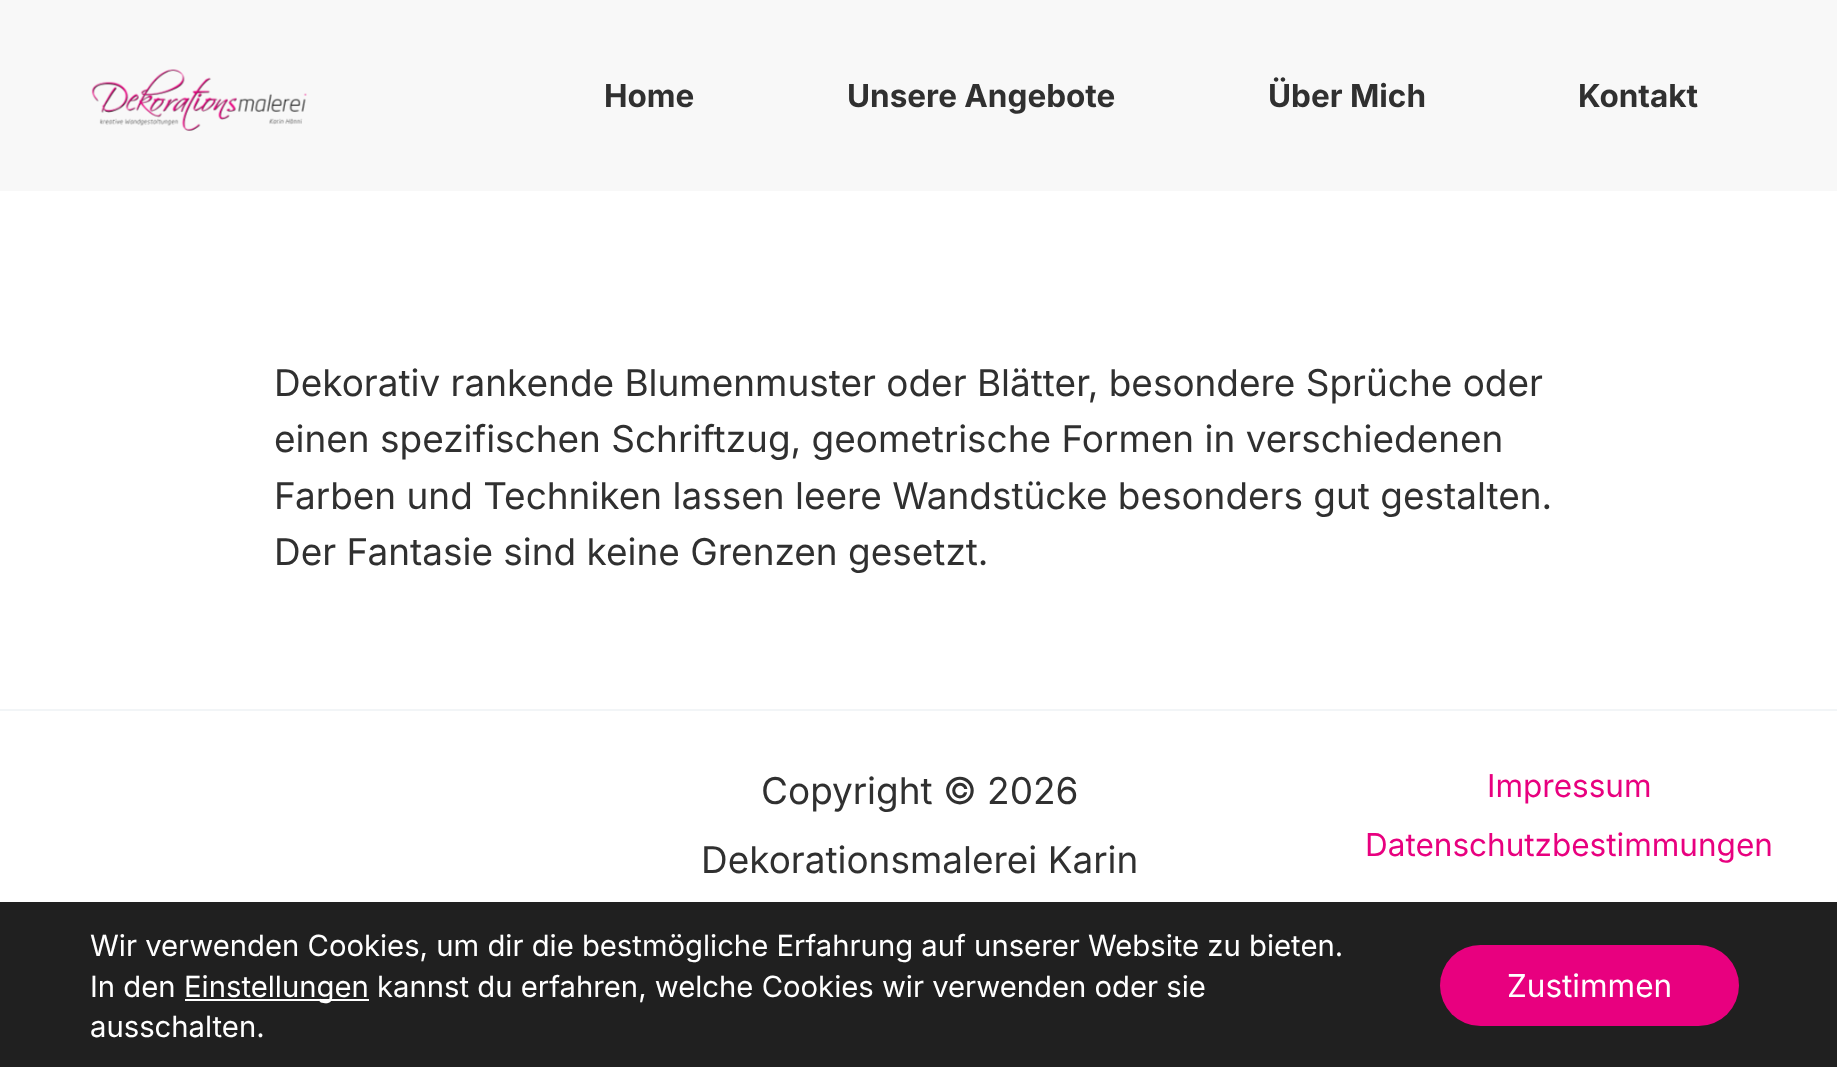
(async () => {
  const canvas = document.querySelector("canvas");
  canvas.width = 1837;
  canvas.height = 1067;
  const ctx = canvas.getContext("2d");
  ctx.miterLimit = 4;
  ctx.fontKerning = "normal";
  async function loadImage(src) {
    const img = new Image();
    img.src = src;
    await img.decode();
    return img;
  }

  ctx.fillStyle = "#ffffff";
  ctx.fillRect(0, 0, 1837, 1067);
  ctx.fillStyle = "#f8f8f8";
  ctx.fillRect(0, 0, 1837, 191);
  ctx.drawImage(await loadImage("img/1.png"), 91, 69, 216, 62);
  for (const [x, y, w, h, color] of [
    [0, 709, 1837, 2, "#f2f5f7"],
    [0, 902, 1837, 165, "#202020"],
    [185, 999, 184, 2, "#ffffff"],
  ]) {
    ctx.fillStyle = color;
    ctx.fillRect(x, y, w, h);
  }
  ctx.fillStyle = "#e8007f";
  ctx.beginPath();
  ctx.roundRect(1440, 945, 299, 81, 40.5);
  ctx.fill();
  ctx.font = "bold 31.5px Inter";
  ctx.fillStyle = "#303030";
  for (const [text, x, y] of [
    ["Home", 604, 107],
    ["Unsere Angebote", 847, 107],
    ["Über Mich", 1268, 107],
    ["Kontakt", 1578, 107],
  ]) {
    ctx.fillText(text, x, y);
  }
  ctx.font = "36.95px Inter";
  for (const [text, x, y] of [
    ["Dekorativ rankende Blumenmuster oder Blätter, besondere Sprüche oder", 274, 396],
    ["einen spezifischen Schriftzug, geometrische Formen in verschiedenen", 274, 452],
    ["Farben und Techniken lassen leere Wandstücke besonders gut gestalten.", 274, 509],
    ["Der Fantasie sind keine Grenzen gesetzt.", 274, 565],
    ["Copyright © 2026", 761, 804],
    ["Dekorationsmalerei Karin", 701, 873],
  ]) {
    ctx.fillText(text, x, y);
  }
  ctx.font = "31.5px Inter";
  ctx.fillStyle = "#e8007f";
  ctx.fillText("Impressum", 1487, 797);
  ctx.fillText("Datenschutzbestimmungen", 1365, 856);
  ctx.font = "29.25px Inter";
  ctx.fillStyle = "#ffffff";
  for (const [text, x, y] of [
    ["Wir verwenden Cookies, um dir die bestmögliche Erfahrung auf unserer Website zu bieten.", 90, 956],
    ["In den", 90, 997],
    ["Einstellungen kannst du erfahren, welche Cookies wir verwenden oder sie", 184, 997],
    ["ausschalten.", 90, 1037],
  ]) {
    ctx.fillText(text, x, y);
  }
  ctx.font = "31.5px Inter";
  ctx.fillText("Zustimmen", 1507, 997);
})();
